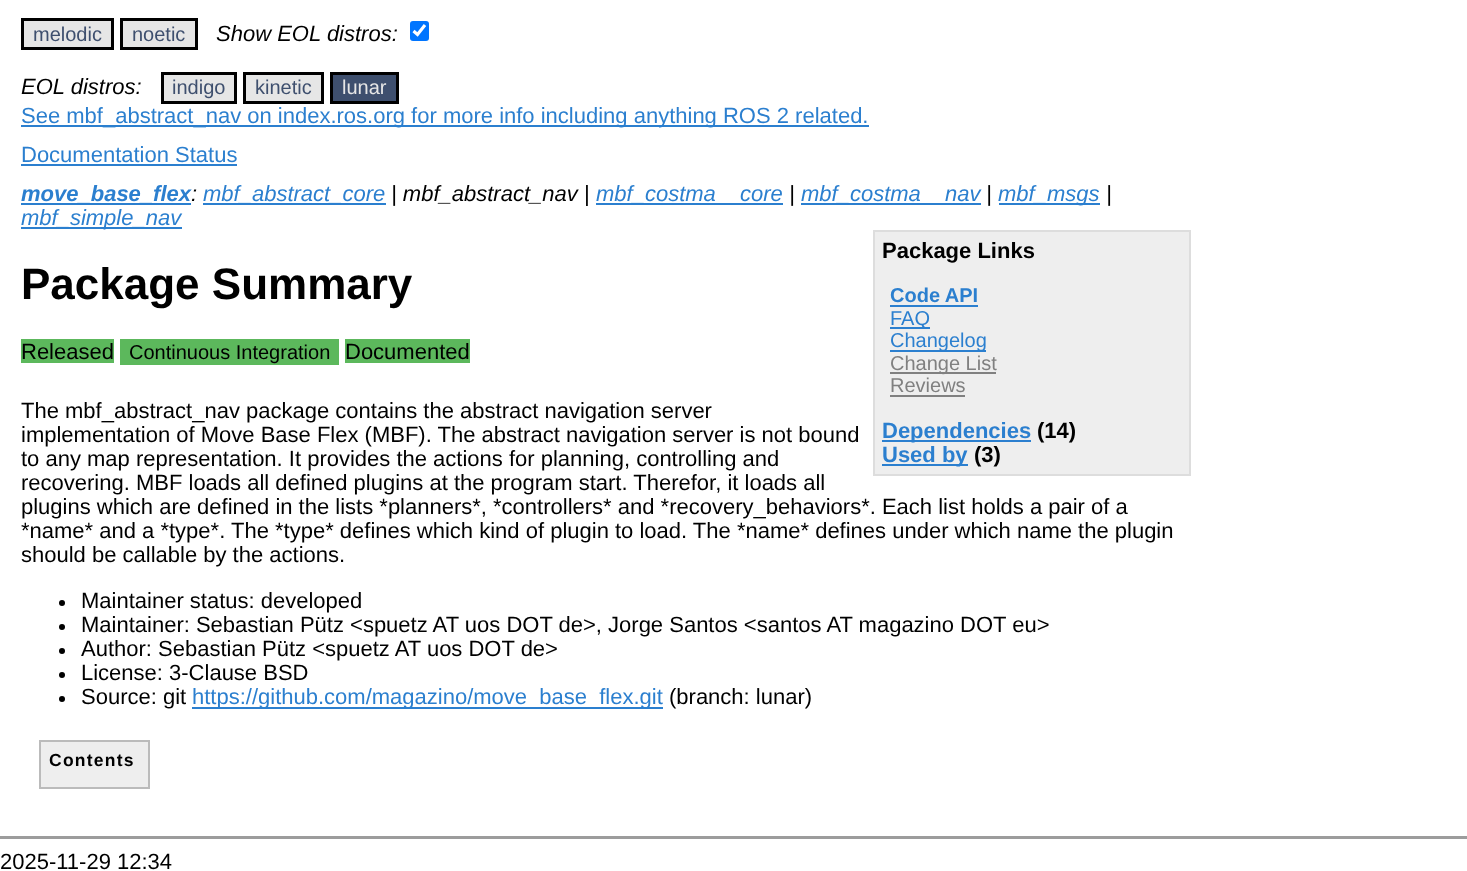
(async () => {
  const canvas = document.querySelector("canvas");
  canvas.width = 1467;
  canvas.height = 871;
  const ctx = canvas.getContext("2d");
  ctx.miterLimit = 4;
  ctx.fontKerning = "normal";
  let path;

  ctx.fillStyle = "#ffffff";
  ctx.fillRect(0, 0, 1467, 871);
  ctx.fillStyle = "#e6e6e6";
  ctx.beginPath();
  ctx.rect(22.5, 19.5, 90, 29);
  ctx.fill();
  ctx.strokeStyle = "#000000";
  ctx.lineWidth = 3;
  ctx.stroke();
  ctx.beginPath();
  ctx.rect(121.5, 19.5, 75, 29);
  ctx.fill();
  ctx.stroke();
  ctx.fillStyle = "#0075ff";
  ctx.beginPath();
  ctx.roundRect(410, 21, 19, 20, 3);
  ctx.fill();
  path = new Path2D("M413.5 31L417.5 34.5L425 25");
  ctx.strokeStyle = "#ffffff";
  ctx.lineWidth = 3.1;
  ctx.stroke(path);
  ctx.fillStyle = "#e6e6e6";
  ctx.beginPath();
  ctx.rect(162.5, 73.5, 73, 29);
  ctx.fill();
  ctx.strokeStyle = "#000000";
  ctx.lineWidth = 3;
  ctx.stroke();
  ctx.beginPath();
  ctx.rect(244.5, 73.5, 78, 29);
  ctx.fill();
  ctx.stroke();
  ctx.fillStyle = "#3e4f6e";
  ctx.beginPath();
  ctx.rect(331.5, 73.5, 66, 29);
  ctx.fill();
  ctx.stroke();
  for (const [x, y, w, h, color] of [
    [21, 125, 848, 2, "#2b7fcf"],
    [21, 164, 216, 2, "#2b7fcf"],
    [21, 203, 170, 2, "#2b7fcf"],
    [203, 203, 183, 2, "#2b7fcf"],
    [596, 203, 187, 2, "#2b7fcf"],
    [801, 203, 180, 2, "#2b7fcf"],
    [999, 203, 101, 2, "#2b7fcf"],
    [21, 227, 161, 2, "#2b7fcf"],
  ]) {
    ctx.fillStyle = color;
    ctx.fillRect(x, y, w, h);
  }
  ctx.fillStyle = "#eeeeee";
  ctx.beginPath();
  ctx.rect(874, 231, 316, 244);
  ctx.fill();
  ctx.strokeStyle = "#dddddd";
  ctx.lineWidth = 2;
  ctx.stroke();
  for (const [x, y, w, h, color] of [
    [890, 305, 88, 2, "#2b7fcf"],
    [890, 327, 40, 2, "#2b7fcf"],
    [890, 350, 96, 2, "#2b7fcf"],
    [890, 372, 106, 2, "#808080"],
    [890, 395, 75, 2, "#808080"],
    [882, 440, 149, 2, "#2b7fcf"],
    [882, 464, 86, 2, "#2b7fcf"],
    [21, 339, 93, 24, "#5cb85c"],
    [120, 339, 219, 26, "#5cb85c"],
    [345, 339, 125, 24, "#5cb85c"],
  ]) {
    ctx.fillStyle = color;
    ctx.fillRect(x, y, w, h);
  }
  ctx.fillStyle = "#000000";
  ctx.beginPath();
  ctx.arc(62, 603, 3, 0, Math.PI * 2);
  ctx.fill();
  ctx.beginPath();
  ctx.arc(62, 627, 3, 0, Math.PI * 2);
  ctx.fill();
  ctx.beginPath();
  ctx.arc(62, 651, 3, 0, Math.PI * 2);
  ctx.fill();
  ctx.beginPath();
  ctx.arc(62, 675, 3, 0, Math.PI * 2);
  ctx.fill();
  ctx.beginPath();
  ctx.arc(62, 699, 3, 0, Math.PI * 2);
  ctx.fill();
  ctx.fillStyle = "#2b7fcf";
  ctx.fillRect(192, 707, 471, 2);
  ctx.fillStyle = "#eeeeee";
  ctx.beginPath();
  ctx.rect(40, 741, 109, 47);
  ctx.fill();
  ctx.strokeStyle = "#bbbbbb";
  ctx.stroke();
  ctx.fillStyle = "#9c9c9c";
  ctx.fillRect(0, 836, 1467, 3);
  ctx.font = "20px Liberation Sans";
  ctx.fillStyle = "#3e4f6e";
  ctx.fillText("melodic", 33, 41);
  ctx.fillText("noetic", 132, 41);
  ctx.font = "italic 22px Liberation Sans";
  ctx.fillStyle = "#000000";
  ctx.fillText("Show EOL distros:", 216, 41);
  ctx.fillText("EOL distros:", 21, 94);
  ctx.font = "20px Liberation Sans";
  ctx.fillStyle = "#3e4f6e";
  ctx.fillText("indigo", 172, 94);
  ctx.fillText("kinetic", 255, 94);
  ctx.fillStyle = "#e6e6e6";
  ctx.fillText("lunar", 342, 94);
  ctx.font = "22px Liberation Sans";
  ctx.fillStyle = "#2b7fcf";
  ctx.fillText("See mbf_abstract_nav on index.ros.org for more info including anything ROS 2 related.", 21, 123);
  ctx.fillText("Documentation Status", 21, 162);
  ctx.font = "italic bold 22px Liberation Sans";
  ctx.fillText("move_base_flex", 21, 201);
  ctx.font = "italic 22px Liberation Sans";
  ctx.fillStyle = "#000000";
  ctx.fillText(":", 191, 201);
  ctx.fillStyle = "#2b7fcf";
  ctx.fillText("mbf_abstract_core", 203, 201);
  ctx.fillStyle = "#000000";
  ctx.fillText("| mbf_abstract_nav |", 391, 201);
  ctx.fillStyle = "#2b7fcf";
  ctx.fillText("mbf_costma", 596, 201);
  ctx.fillText("core", 740, 201);
  ctx.fillStyle = "#000000";
  ctx.fillText("|", 789, 201);
  ctx.fillStyle = "#2b7fcf";
  ctx.fillText("mbf_costma", 801, 201);
  ctx.fillText("nav", 945, 201);
  ctx.fillStyle = "#000000";
  ctx.fillText("|", 986, 201);
  ctx.fillStyle = "#2b7fcf";
  ctx.fillText("mbf_msgs", 998, 201);
  ctx.fillStyle = "#000000";
  ctx.fillText("|", 1106, 201);
  ctx.fillStyle = "#2b7fcf";
  ctx.fillText("mbf_simple_nav", 21, 225);
  ctx.font = "bold 44px Liberation Sans";
  ctx.fillStyle = "#000000";
  ctx.fillText("Package Summary", 21, 299);
  ctx.font = "bold 22px Liberation Sans";
  ctx.fillText("Package Links", 882, 258);
  ctx.font = "bold 20px Liberation Sans";
  ctx.fillStyle = "#2b7fcf";
  ctx.fillText("Code API", 890, 302);
  ctx.font = "20px Liberation Sans";
  ctx.fillText("FAQ", 890, 325);
  ctx.fillText("Changelog", 890, 347);
  ctx.fillStyle = "#808080";
  ctx.fillText("Change List", 890, 370);
  ctx.fillText("Reviews", 890, 392);
  ctx.font = "bold 22px Liberation Sans";
  ctx.fillStyle = "#2b7fcf";
  ctx.fillText("Dependencies", 882, 438);
  ctx.fillStyle = "#000000";
  ctx.fillText("(14)", 1037, 438);
  ctx.fillStyle = "#2b7fcf";
  ctx.fillText("Used by", 882, 462);
  ctx.fillStyle = "#000000";
  ctx.fillText("(3)", 974, 462);
  ctx.font = "22px Liberation Sans";
  ctx.fillText("Released", 21, 359);
  ctx.font = "20px Liberation Sans";
  ctx.fillText("Continuous Integration", 129, 359);
  ctx.font = "22px Liberation Sans";
  for (const [text, x, y] of [
    ["Documented", 345, 359],
    ["The mbf_abstract_nav package contains the abstract navigation server", 21, 418],
    ["implementation of Move Base Flex (MBF). The abstract navigation server is not bound", 21, 442],
    ["to any map representation. It provides the actions for planning, controlling and", 21, 466],
    ["recovering. MBF loads all defined plugins at the program start. Therefor, it loads all", 21, 490],
    ["plugins which are defined in the lists *planners*, *controllers* and *recovery_behaviors*. Each list holds a pair of a", 21, 514],
    ["*name* and a *type*. The *type* defines which kind of plugin to load. The *name* defines under which name the plugin", 21, 538],
    ["should be callable by the actions.", 21, 562],
    ["Maintainer status: developed", 81, 608],
    ["Maintainer: Sebastian Pütz <spuetz AT uos DOT de>, Jorge Santos <santos AT magazino DOT eu>", 81, 632],
    ["Author: Sebastian Pütz <spuetz AT uos DOT de>", 81, 656],
    ["License: 3-Clause BSD", 81, 680],
    ["Source: git", 81, 704],
  ]) {
    ctx.fillText(text, x, y);
  }
  ctx.fillStyle = "#2b7fcf";
  ctx.fillText("https://github.com/magazino/move_base_flex.git", 192, 704);
  ctx.fillStyle = "#000000";
  ctx.fillText("(branch: lunar)", 669, 704);
  ctx.letterSpacing = "1.25px";
  ctx.font = "bold 17.5px Liberation Sans";
  ctx.fillText("Contents", 49, 766);
  ctx.letterSpacing = "0px";
  ctx.font = "22px Liberation Sans";
  ctx.fillText("2025-11-29 12:34", 0, 869);
})();
